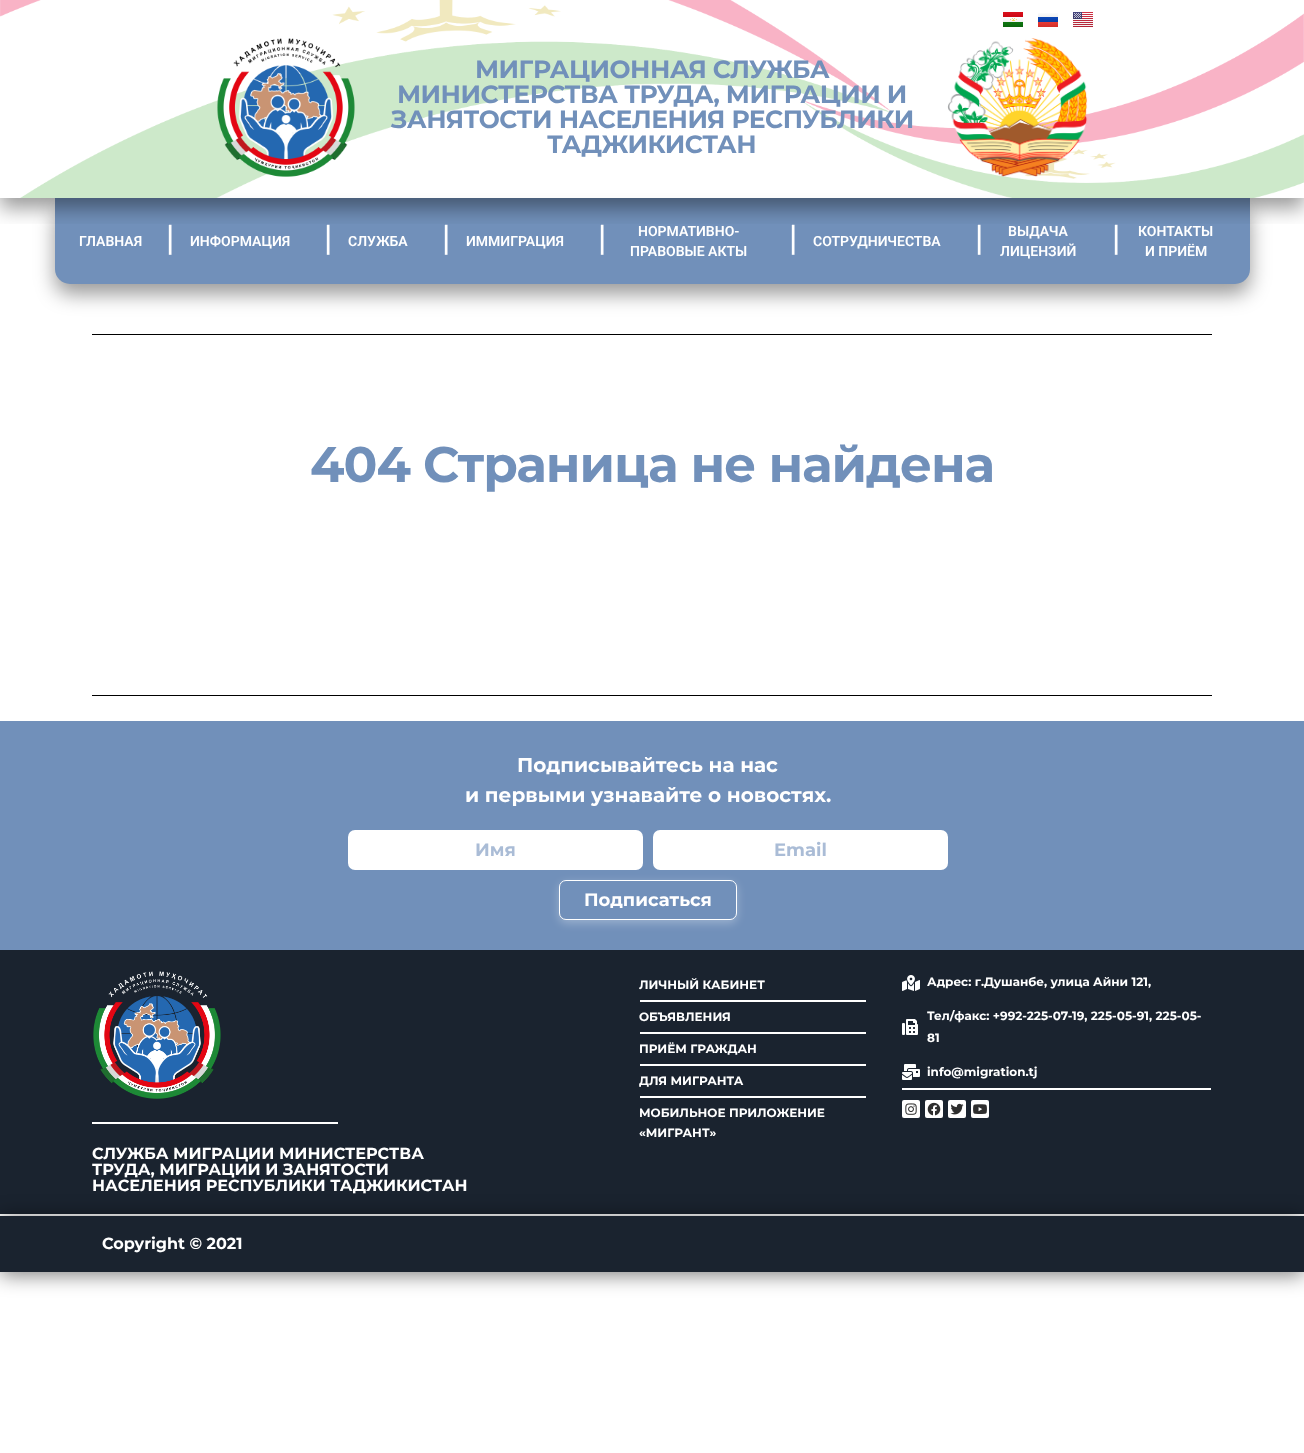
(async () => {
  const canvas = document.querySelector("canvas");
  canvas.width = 1304;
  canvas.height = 1453;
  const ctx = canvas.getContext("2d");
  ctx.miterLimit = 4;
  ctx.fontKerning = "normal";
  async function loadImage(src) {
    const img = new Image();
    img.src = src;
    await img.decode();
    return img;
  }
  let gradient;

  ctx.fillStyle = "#ffffff";
  ctx.fillRect(0, 0, 1304, 1453);
  ctx.fillStyle = "rgba(0, 0, 0, 0.4)";
  ctx.filter = "blur(10px)";
  ctx.beginPath();
  ctx.roundRect(55, 208, 1195, 86, 15);
  ctx.fill();
  ctx.filter = "none";
  ctx.fillStyle = "#7190ba";
  ctx.beginPath();
  ctx.roundRect(55, 198, 1195, 86, [0, 0, 15, 15]);
  ctx.fill();
  ctx.save();
  ctx.beginPath();
  ctx.rect(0, 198, 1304, 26);
  ctx.clip();
  ctx.fillStyle = "rgba(0, 0, 0, 0.4)";
  ctx.filter = "blur(10px)";
  ctx.beginPath();
  ctx.rect(0, 10, 1304, 198);
  ctx.fill();
  ctx.filter = "none";
  ctx.restore();
  ctx.drawImage(await loadImage("img/1.png"), 0, 0, 1304, 198);
  ctx.fillStyle = "rgba(255, 255, 255, 0.7)";
  ctx.fillRect(0, 0, 1304, 198);
  ctx.drawImage(await loadImage("img/2.png"), 1003, 12, 20, 15);
  gradient = ctx.createLinearGradient(1049, 12, 1049, 17);
  gradient.addColorStop(0, "#ffffff");
  gradient.addColorStop(1, "#f0f0f0");
  ctx.fillStyle = gradient;
  ctx.fillRect(1038, 13, 20, 4);
  gradient = ctx.createLinearGradient(1049, 17, 1049, 22);
  gradient.addColorStop(0, "#0c47b7");
  gradient.addColorStop(1, "#073da4");
  ctx.fillStyle = gradient;
  ctx.fillRect(1038, 17, 20, 5);
  gradient = ctx.createLinearGradient(1049, 22, 1049, 27);
  gradient.addColorStop(0, "#e53b35");
  gradient.addColorStop(1, "#d32e28");
  ctx.fillStyle = gradient;
  ctx.fillRect(1038, 22, 20, 5);
  ctx.drawImage(await loadImage("img/3.png"), 1073, 12, 20, 15);
  ctx.drawImage(await loadImage("img/4.png"), 217, 38, 138, 139);
  ctx.drawImage(await loadImage("img/5.png"), 947, 38, 141, 139);
  for (const [x, y, w, h, color] of [
    [92, 334, 1120, 1, "#000000"],
    [92, 695, 1120, 1, "#000000"],
    [0, 721, 1304, 229, "#7190ba"],
  ]) {
    ctx.fillStyle = color;
    ctx.fillRect(x, y, w, h);
  }
  ctx.fillStyle = "#ffffff";
  ctx.beginPath();
  ctx.roundRect(348, 830, 295, 40, 7);
  ctx.fill();
  ctx.beginPath();
  ctx.roundRect(653, 830, 295, 40, 7);
  ctx.fill();
  ctx.fillStyle = "rgba(255, 255, 255, 0.3)";
  ctx.filter = "blur(5px)";
  ctx.beginPath();
  ctx.roundRect(559, 883, 178, 40, 7);
  ctx.fill();
  ctx.filter = "none";
  ctx.fillStyle = "#7190ba";
  ctx.beginPath();
  ctx.roundRect(559.5, 880.5, 177, 39, 6.5);
  ctx.fill();
  ctx.strokeStyle = "#ffffff";
  ctx.stroke();
  for (const [x, y, w, h, color] of [
    [0, 950, 1304, 264, "#1a232f"],
    [640, 1000, 226, 2, "#ffffff"],
    [640, 1032, 226, 2, "#ffffff"],
    [640, 1064, 226, 2, "#ffffff"],
    [640, 1096, 226, 2, "#ffffff"],
    [902, 1088, 309, 2, "#ffffff"],
  ]) {
    ctx.fillStyle = color;
    ctx.fillRect(x, y, w, h);
  }
  ctx.drawImage(await loadImage("img/6.png"), 902, 975, 18, 16);
  ctx.drawImage(await loadImage("img/7.png"), 902, 1019, 16, 16);
  ctx.drawImage(await loadImage("img/8.png"), 902, 1064, 18, 16);
  ctx.beginPath();
  ctx.roundRect(902, 1100, 18, 18, 2);
  ctx.fill();
  ctx.drawImage(await loadImage("img/9.png"), 905, 1103, 12, 12);
  ctx.beginPath();
  ctx.roundRect(925, 1100, 18, 18, 2);
  ctx.fill();
  ctx.drawImage(await loadImage("img/10.png"), 927, 1102, 14, 14);
  ctx.beginPath();
  ctx.roundRect(948, 1100, 18, 18, 2);
  ctx.fill();
  ctx.drawImage(await loadImage("img/11.png"), 950, 1103, 14, 12);
  ctx.beginPath();
  ctx.roundRect(971, 1100, 18, 18, 2);
  ctx.fill();
  ctx.drawImage(await loadImage("img/12.png"), 973, 1104, 14, 10);
  ctx.drawImage(await loadImage("img/13.png"), 93, 971, 128, 128);
  ctx.fillRect(92, 1122, 246, 2);
  ctx.fillStyle = "rgba(0, 0, 0, 0.5)";
  ctx.filter = "blur(10px)";
  ctx.beginPath();
  ctx.rect(0, 1217, 1304, 58);
  ctx.fill();
  ctx.filter = "none";
  ctx.fillStyle = "#1a232f";
  ctx.fillRect(0, 1216, 1304, 56);
  ctx.letterSpacing = "-0.5px";
  ctx.font = "bold 25px Montserrat";
  ctx.fillStyle = "#7190ba";
  for (const [text, x, y] of [
    ["МИГРАЦИОННАЯ СЛУЖБА", 475, 78],
    ["МИНИСТЕРСТВА ТРУДА, МИГРАЦИИ И", 397, 103],
    ["ЗАНЯТОСТИ НАСЕЛЕНИЯ РЕСПУБЛИКИ", 391, 128],
    ["ТАДЖИКИСТАН", 547, 153],
  ]) {
    ctx.fillText(text, x, y);
  }
  ctx.letterSpacing = "0px";
  ctx.font = "600 14px Roboto";
  ctx.fillStyle = "#ffffff";
  ctx.fillText("ГЛАВНАЯ", 79, 246);
  ctx.font = "32px Liberation Sans";
  ctx.fillText("|", 166, 248);
  ctx.font = "600 14px Roboto";
  ctx.fillText("ИНФОРМАЦИЯ", 190, 246);
  ctx.font = "32px Liberation Sans";
  ctx.fillText("|", 324, 248);
  ctx.font = "600 14px Roboto";
  ctx.fillText("СЛУЖБА", 348, 246);
  ctx.font = "32px Liberation Sans";
  ctx.fillText("|", 442, 248);
  ctx.font = "600 14px Roboto";
  ctx.fillText("ИММИГРАЦИЯ", 466, 246);
  ctx.font = "32px Liberation Sans";
  ctx.fillText("|", 598, 248);
  ctx.font = "600 14px Roboto";
  ctx.fillText("НОРМАТИВНО-", 638, 236);
  ctx.fillText("ПРАВОВЫЕ АКТЫ", 630, 256);
  ctx.font = "32px Liberation Sans";
  ctx.fillText("|", 789, 248);
  ctx.font = "600 14px Roboto";
  ctx.fillText("СОТРУДНИЧЕСТВА", 813, 246);
  ctx.font = "32px Liberation Sans";
  ctx.fillText("|", 975, 248);
  ctx.font = "600 14px Roboto";
  ctx.fillText("ВЫДАЧА", 1008, 236);
  ctx.fillText("ЛИЦЕНЗИЙ", 1000, 256);
  ctx.font = "32px Liberation Sans";
  ctx.fillText("|", 1112, 248);
  ctx.font = "600 14px Roboto";
  ctx.fillText("КОНТАКТЫ", 1138, 236);
  ctx.fillText("И ПРИЁМ", 1145, 256);
  ctx.letterSpacing = "-1px";
  ctx.font = "bold 50px Montserrat";
  ctx.fillStyle = "#7190ba";
  ctx.fillText("404 Страница не найдена", 310, 482);
  ctx.letterSpacing = "0px";
  ctx.font = "bold 20px Montserrat";
  ctx.fillStyle = "#ffffff";
  ctx.fillText("Подписывайтесь на нас", 517, 772);
  ctx.fillText("и первыми узнавайте о новостях.", 465, 802);
  ctx.font = "bold 18px Montserrat";
  ctx.fillStyle = "#aabcd6";
  ctx.fillText("Имя", 475, 856);
  ctx.fillText("Email", 774, 856);
  ctx.fillStyle = "#ffffff";
  ctx.fillText("Подписаться", 584, 906);
  ctx.font = "bold 12px Montserrat";
  for (const [text, x, y] of [
    ["ЛИЧНЫЙ КАБИНЕТ", 639, 989],
    ["ОБЪЯВЛЕНИЯ", 639, 1021],
    ["ПРИЁМ ГРАЖДАН", 639, 1053],
    ["ДЛЯ МИГРАНТА", 639, 1085],
    ["МОБИЛЬНОЕ ПРИЛОЖЕНИЕ", 639, 1117],
    ["«МИГРАНТ»", 639, 1137],
    ["Адрес: г.Душанбе, улица Айни 121,", 927, 986],
    ["Тел/факс: +992-225-07-19, 225-05-91, 225-05-", 927, 1020],
    ["81", 927, 1042],
    ["info@migration.tj", 927, 1076],
  ]) {
    ctx.fillText(text, x, y);
  }
  ctx.font = "bold 16px Montserrat";
  for (const [text, x, y] of [
    ["СЛУЖБА МИГРАЦИИ МИНИСТЕРСТВА", 92, 1159],
    ["ТРУДА, МИГРАЦИИ И ЗАНЯТОСТИ", 92, 1175],
    ["НАСЕЛЕНИЯ РЕСПУБЛИКИ ТАДЖИКИСТАН", 92, 1191],
    ["Copyright © 2021", 102, 1249],
  ]) {
    ctx.fillText(text, x, y);
  }
})();
